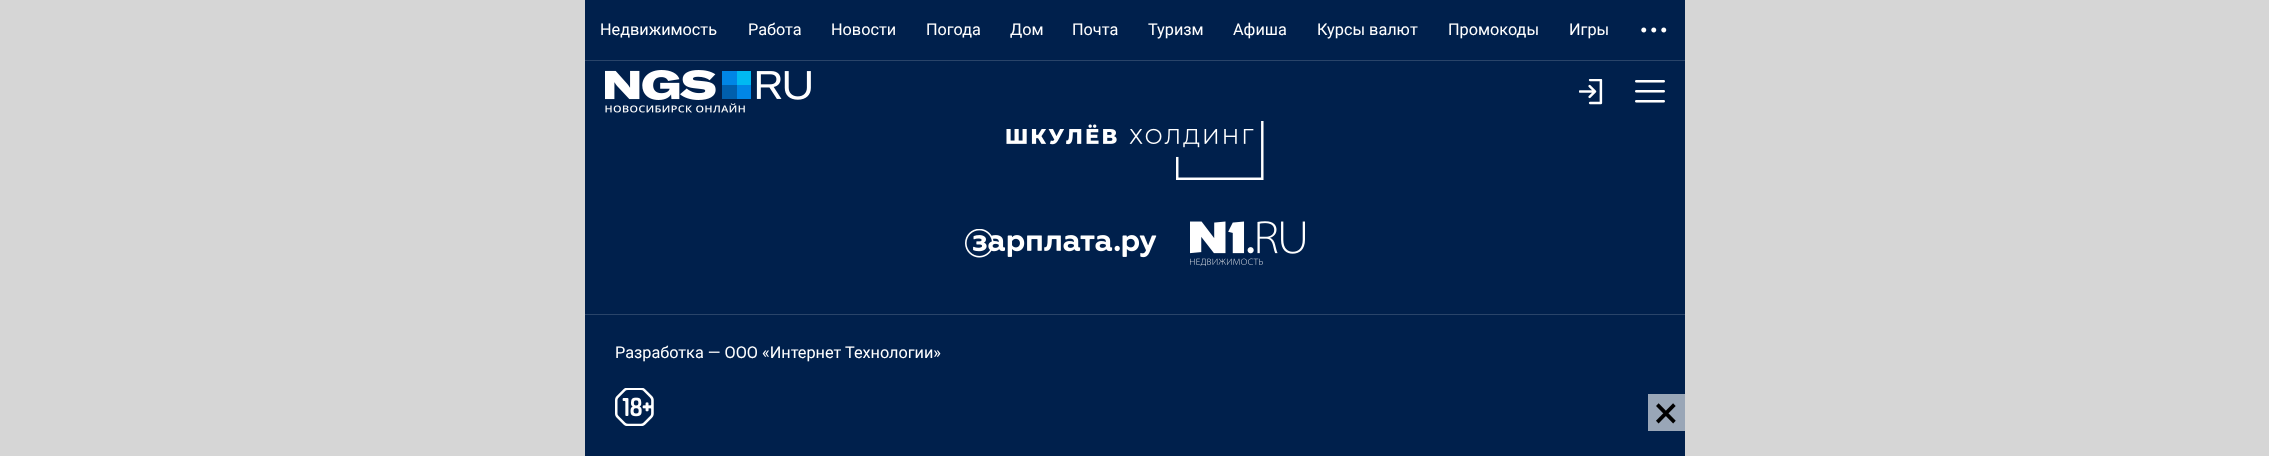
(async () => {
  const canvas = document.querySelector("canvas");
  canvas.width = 2269;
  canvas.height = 456;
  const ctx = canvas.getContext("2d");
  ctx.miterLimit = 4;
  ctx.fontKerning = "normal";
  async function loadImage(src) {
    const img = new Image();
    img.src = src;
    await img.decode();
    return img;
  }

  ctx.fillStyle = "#d6d6d6";
  ctx.fillRect(0, 0, 2269, 456);
  ctx.fillStyle = "#00204c";
  ctx.fillRect(585, 0, 1100, 60);
  ctx.fillStyle = "#294469";
  ctx.fillRect(585, 60, 1100, 1);
  ctx.drawImage(await loadImage("img/1.png"), 1641, 27, 26, 6);
  ctx.fillStyle = "#00204c";
  ctx.fillRect(585, 61, 1100, 395);
  ctx.drawImage(await loadImage("img/2.png"), 605, 70, 206, 43);
  ctx.drawImage(await loadImage("img/3.png"), 1579, 79, 24, 26);
  ctx.drawImage(await loadImage("img/4.png"), 1635, 80, 30, 23);
  ctx.drawImage(await loadImage("img/5.png"), 1006, 121, 258, 59);
  ctx.drawImage(await loadImage("img/6.png"), 965, 229, 192, 29);
  ctx.drawImage(await loadImage("img/7.png"), 1190, 221, 115, 45);
  ctx.fillStyle = "#294469";
  ctx.fillRect(585, 314, 1100, 1);
  ctx.drawImage(await loadImage("img/8.png"), 615, 388, 39, 38);
  ctx.fillStyle = "#99a6b7";
  ctx.fillRect(1648, 394, 37, 37);
  ctx.font = "16.25px Roboto";
  ctx.fillStyle = "#ffffff";
  for (const [text, x, y] of [
    ["Недвижимость", 600, 35],
    ["Работа", 748, 35],
    ["Новости", 831, 35],
    ["Погода", 926, 35],
    ["Дом", 1010, 35],
    ["Почта", 1072, 35],
    ["Туризм", 1148, 35],
    ["Афиша", 1233, 35],
    ["Курсы валют", 1317, 35],
    ["Промокоды", 1448, 35],
    ["Игры", 1569, 35],
    ["Разработка — ООО «Интернет Технологии»", 615, 358],
  ]) {
    ctx.fillText(text, x, y);
  }
  ctx.font = "45px Roboto";
  ctx.fillStyle = "#000000";
  ctx.fillText("×", 1654, 428);
})();
